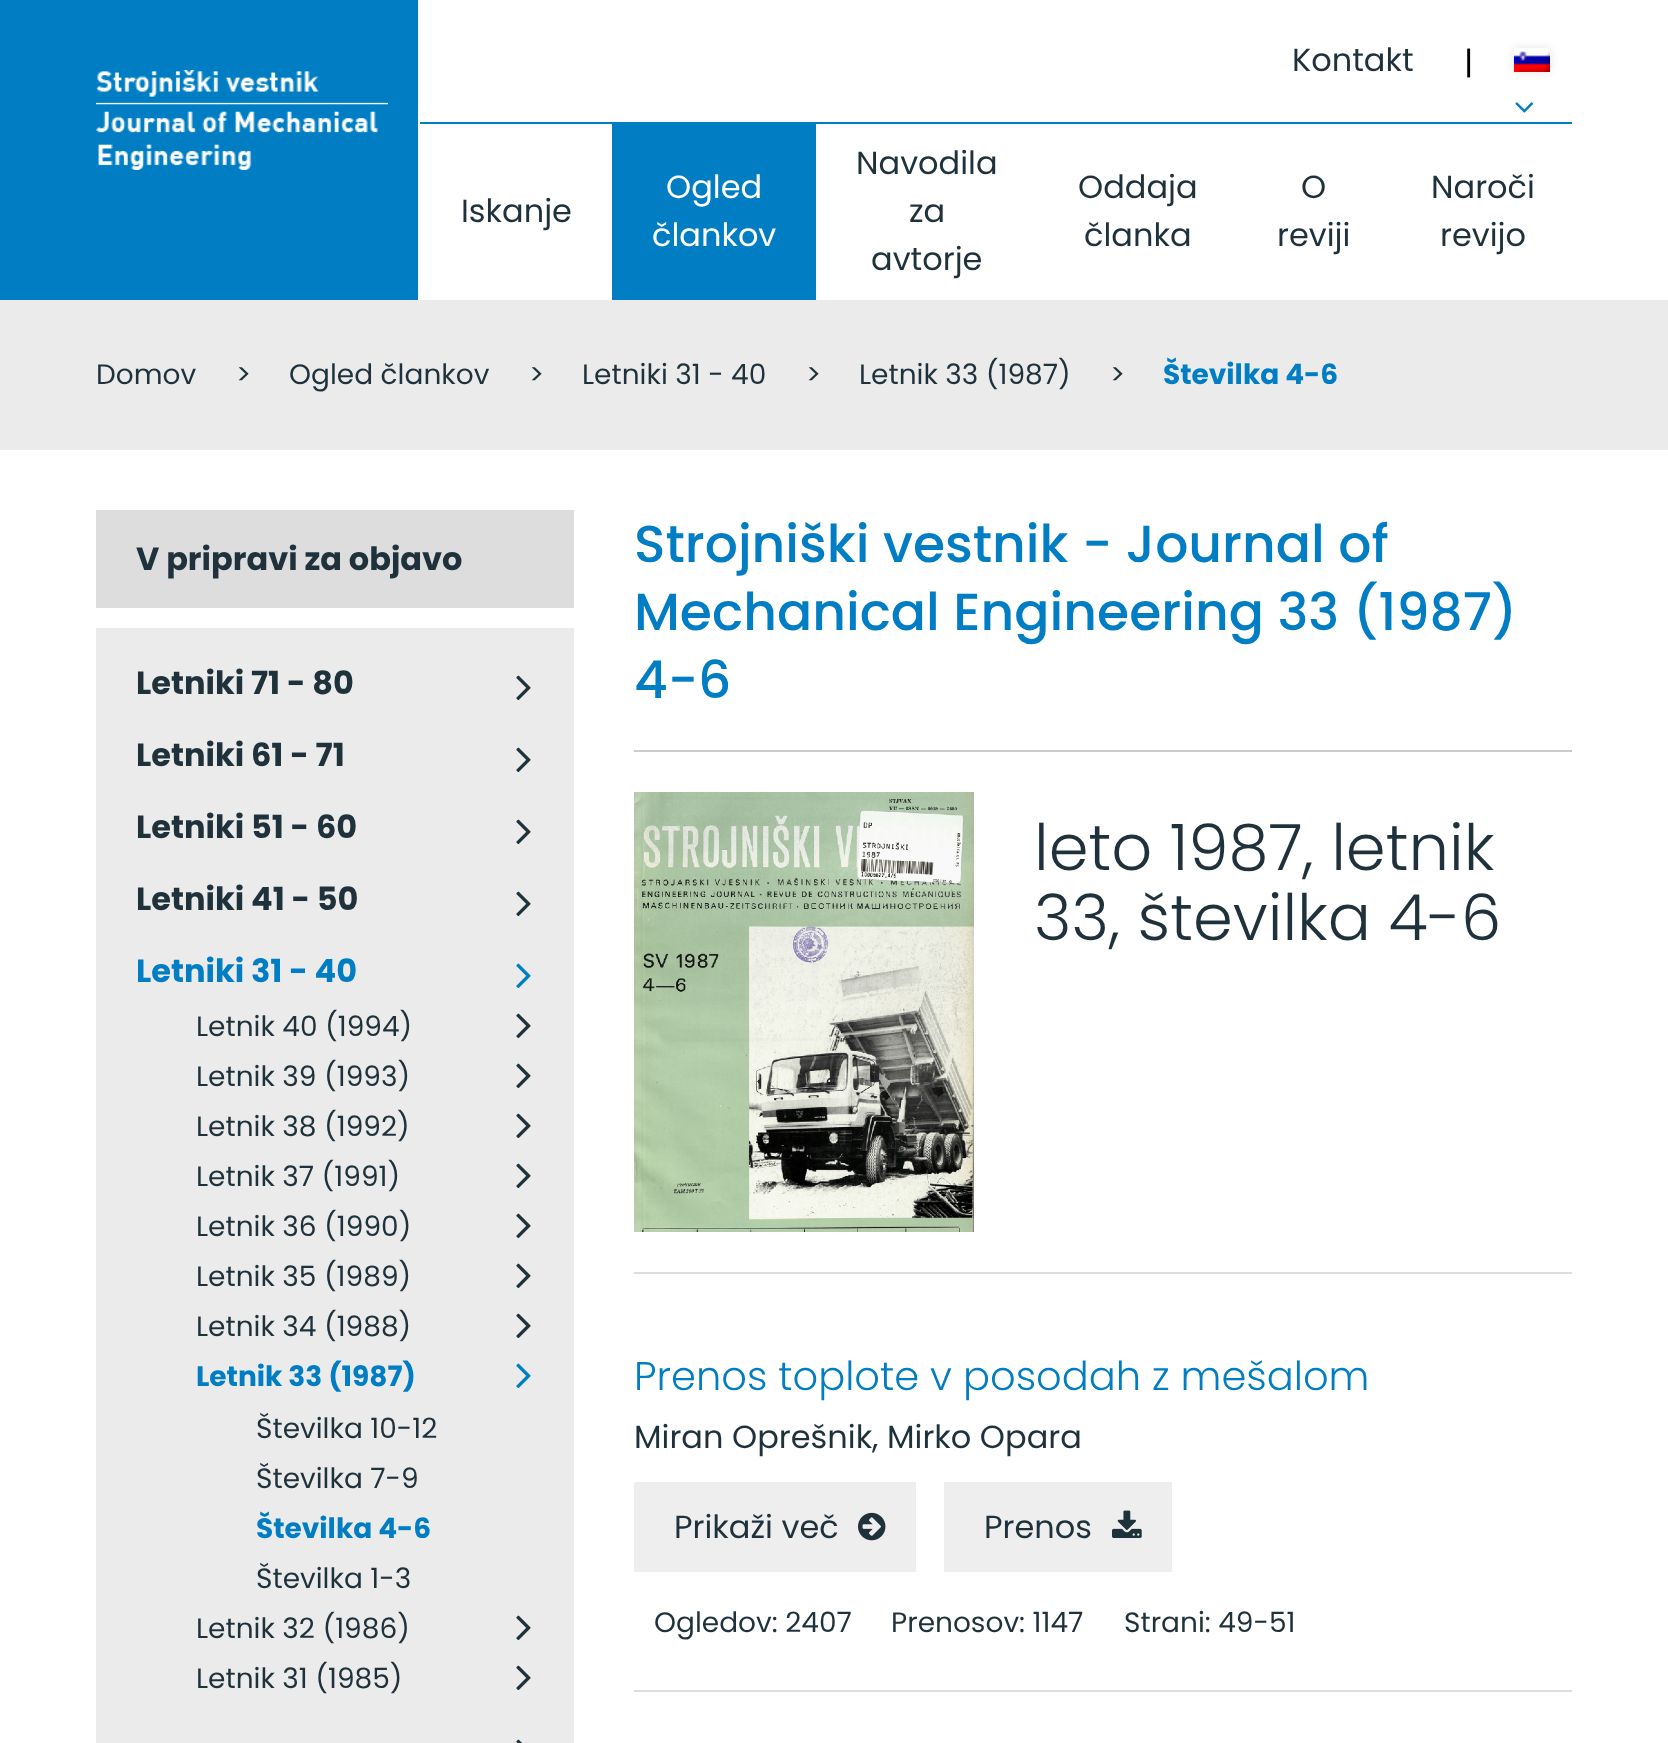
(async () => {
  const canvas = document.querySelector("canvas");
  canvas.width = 1668;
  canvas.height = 1743;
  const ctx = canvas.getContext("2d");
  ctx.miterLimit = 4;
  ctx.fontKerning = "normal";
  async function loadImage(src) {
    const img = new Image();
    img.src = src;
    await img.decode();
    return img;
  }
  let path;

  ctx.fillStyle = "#ffffff";
  ctx.fillRect(0, 0, 1668, 1743);
  ctx.fillStyle = "#017dc3";
  ctx.fillRect(0, 0, 418, 300);
  ctx.drawImage(await loadImage("img/1.png"), 96, 70, 292, 100);
  ctx.save();
  path = new Path2D("M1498 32H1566V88H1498ZM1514 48H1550V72H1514Z");
  ctx.clip(path, "evenodd");
  ctx.fillStyle = "rgba(0, 0, 0, 0.1)";
  ctx.filter = "blur(5px)";
  ctx.beginPath();
  ctx.rect(1514, 48, 36, 24);
  ctx.fill();
  ctx.filter = "none";
  ctx.restore();
  ctx.drawImage(await loadImage("img/2.png"), 1514, 51, 36, 21);
  ctx.drawImage(await loadImage("img/3.png"), 1515, 102, 19, 11);
  for (const [x, y, w, h, color] of [
    [420, 122, 1152, 2, "#017dc3"],
    [612, 124, 204, 176, "#017dc3"],
    [0, 300, 1668, 150, "#ebebeb"],
    [96, 628, 478, 1115, "#ebebeb"],
    [96, 510, 478, 98, "#dddddd"],
  ]) {
    ctx.fillStyle = color;
    ctx.fillRect(x, y, w, h);
  }
  ctx.drawImage(await loadImage("img/4.png"), 516, 675, 15, 26);
  ctx.drawImage(await loadImage("img/4.png"), 516, 747, 15, 26);
  ctx.drawImage(await loadImage("img/4.png"), 516, 819, 15, 26);
  ctx.drawImage(await loadImage("img/4.png"), 516, 891, 15, 26);
  ctx.drawImage(await loadImage("img/5.png"), 516, 963, 15, 26);
  ctx.drawImage(await loadImage("img/4.png"), 516, 1013, 15, 26);
  ctx.drawImage(await loadImage("img/4.png"), 516, 1063, 15, 26);
  ctx.drawImage(await loadImage("img/4.png"), 516, 1113, 15, 26);
  ctx.drawImage(await loadImage("img/4.png"), 516, 1163, 15, 26);
  ctx.drawImage(await loadImage("img/4.png"), 516, 1213, 15, 26);
  ctx.drawImage(await loadImage("img/4.png"), 516, 1263, 15, 26);
  ctx.drawImage(await loadImage("img/4.png"), 516, 1313, 15, 26);
  ctx.drawImage(await loadImage("img/5.png"), 516, 1363, 15, 26);
  ctx.drawImage(await loadImage("img/4.png"), 516, 1615, 15, 26);
  ctx.drawImage(await loadImage("img/4.png"), 516, 1665, 15, 26);
  ctx.drawImage(await loadImage("img/6.png"), 516, 1739, 6, 4);
  ctx.fillStyle = "#cccccc";
  ctx.fillRect(634, 750, 938, 2);
  ctx.fillStyle = "#dddddd";
  ctx.fillRect(634, 1272, 938, 2);
  ctx.drawImage(await loadImage("img/7.png"), 634, 792, 340, 440);
  ctx.fillRect(634, 1690, 938, 2);
  ctx.fillStyle = "#eeeeee";
  ctx.fillRect(634, 1482, 282, 90);
  ctx.drawImage(await loadImage("img/8.png"), 858, 1512, 28, 29);
  ctx.fillRect(944, 1482, 228, 90);
  ctx.drawImage(await loadImage("img/9.png"), 1112, 1510, 30, 28);
  ctx.font = "32px Poppins";
  ctx.fillStyle = "#1f323c";
  ctx.fillText("Kontakt", 1292, 71);
  ctx.fillStyle = "#000000";
  ctx.fillText("|", 1464, 74);
  ctx.fillStyle = "#1f323c";
  ctx.fillText("Iskanje", 461, 222);
  ctx.fillStyle = "#ffffff";
  ctx.fillText("Ogled", 666, 198);
  ctx.fillText("člankov", 652, 246);
  ctx.fillStyle = "#1f323c";
  for (const [text, x, y] of [
    ["Navodila", 856, 174],
    ["za", 909, 222],
    ["avtorje", 871, 270],
    ["Oddaja", 1078, 198],
    ["članka", 1084, 246],
    ["O", 1301, 198],
    ["reviji", 1277, 246],
    ["Naroči", 1431, 198],
    ["revijo", 1440, 246],
  ]) {
    ctx.fillText(text, x, y);
  }
  ctx.font = "28px Poppins";
  for (const [text, x, y] of [
    ["Domov", 96, 384],
    [">", 236, 384],
    ["Ogled člankov", 289, 384],
    [">", 529, 384],
    ["Letniki 31 - 40", 582, 384],
    [">", 806, 384],
    ["Letnik 33 (1987)", 859, 384],
    [">", 1110, 384],
  ]) {
    ctx.fillText(text, x, y);
  }
  ctx.font = "bold 28px Poppins";
  ctx.fillStyle = "#017dc3";
  ctx.fillText("Številka 4-6", 1163, 384);
  ctx.font = "bold 32px Poppins";
  ctx.fillStyle = "#1f323c";
  for (const [text, x, y] of [
    ["V pripravi za objavo", 136, 570],
    ["Letniki 71 - 80", 136, 694],
    ["Letniki 61 - 71", 136, 766],
    ["Letniki 51 - 60", 136, 838],
    ["Letniki 41 - 50", 136, 910],
  ]) {
    ctx.fillText(text, x, y);
  }
  ctx.fillStyle = "#017dc3";
  ctx.fillText("Letniki 31 - 40", 136, 982);
  ctx.font = "28px Poppins";
  ctx.fillStyle = "#1f323c";
  for (const [text, x, y] of [
    ["Letnik 40 (1994)", 196, 1036],
    ["Letnik 39 (1993)", 196, 1086],
    ["Letnik 38 (1992)", 196, 1136],
    ["Letnik 37 (1991)", 196, 1186],
    ["Letnik 36 (1990)", 196, 1236],
    ["Letnik 35 (1989)", 196, 1286],
    ["Letnik 34 (1988)", 196, 1336],
  ]) {
    ctx.fillText(text, x, y);
  }
  ctx.font = "bold 28px Poppins";
  ctx.fillStyle = "#017dc3";
  ctx.fillText("Letnik 33 (1987)", 196, 1386);
  ctx.font = "28px Poppins";
  ctx.fillStyle = "#1f323c";
  ctx.fillText("Številka 10-12", 256, 1438);
  ctx.fillText("Številka 7-9", 256, 1488);
  ctx.font = "bold 28px Poppins";
  ctx.fillStyle = "#017dc3";
  ctx.fillText("Številka 4-6", 256, 1538);
  ctx.font = "28px Poppins";
  ctx.fillStyle = "#1f323c";
  for (const [text, x, y] of [
    ["Številka 1-3", 256, 1588],
    ["Letnik 32 (1986)", 196, 1638],
    ["Letnik 31 (1985)", 196, 1688],
  ]) {
    ctx.fillText(text, x, y);
  }
  ctx.font = "500 52px Poppins";
  ctx.fillStyle = "#017dc3";
  for (const [text, x, y] of [
    ["Strojniški vestnik - Journal of", 634, 562],
    ["Mechanical Engineering 33 (1987)", 634, 630],
    ["4-6", 634, 698],
  ]) {
    ctx.fillText(text, x, y);
  }
  ctx.font = "300 64px Poppins";
  ctx.fillStyle = "#1f323c";
  ctx.fillText("leto 1987, letnik", 1034, 870);
  ctx.fillText("33, številka 4-6", 1034, 940);
  ctx.font = "300 40px Poppins";
  ctx.fillStyle = "#017dc3";
  ctx.fillText("Prenos toplote v posodah z mešalom", 634, 1390);
  ctx.font = "32px Poppins";
  ctx.fillStyle = "#1f323c";
  for (const [text, x, y] of [
    ["Miran Oprešnik, Mirko Opara", 634, 1448],
    ["Prikaži več", 674, 1538],
    ["Prenos", 984, 1538],
  ]) {
    ctx.fillText(text, x, y);
  }
  ctx.font = "28px Poppins";
  for (const [text, x, y] of [
    ["Ogledov: 2407", 654, 1632],
    ["Prenosov: 1147", 891, 1632],
    ["Strani: 49-51", 1124, 1632],
  ]) {
    ctx.fillText(text, x, y);
  }
})();
